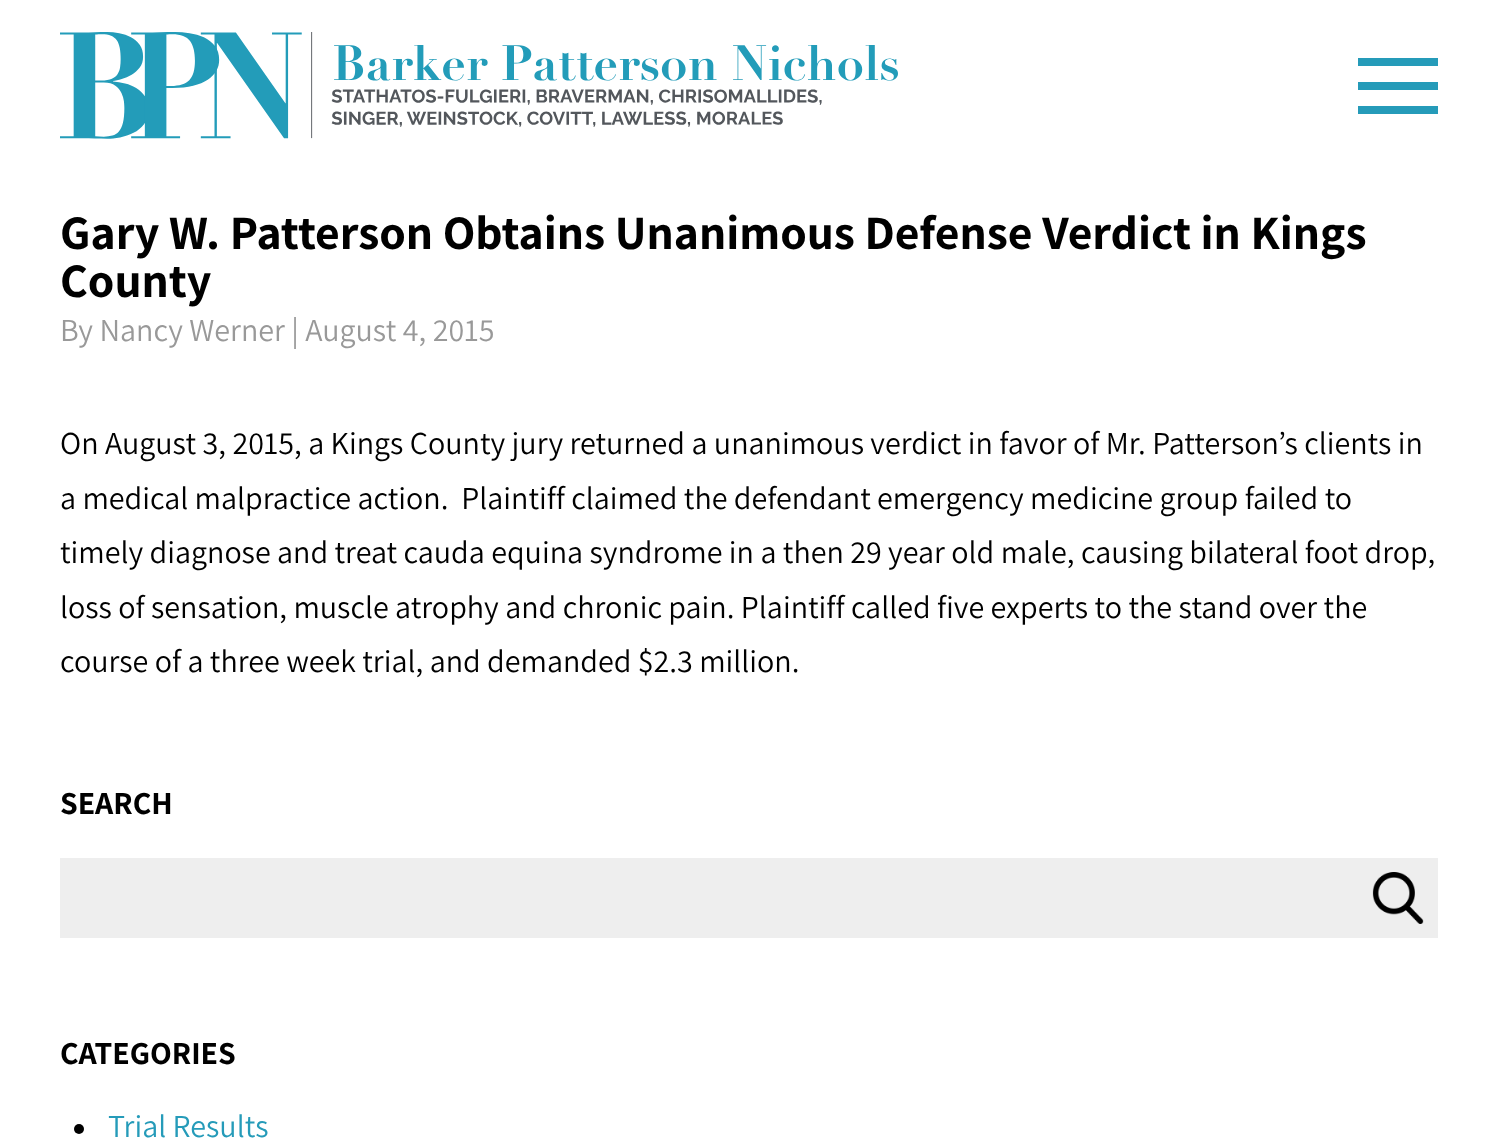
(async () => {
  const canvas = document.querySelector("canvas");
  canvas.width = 1498;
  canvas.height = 1139;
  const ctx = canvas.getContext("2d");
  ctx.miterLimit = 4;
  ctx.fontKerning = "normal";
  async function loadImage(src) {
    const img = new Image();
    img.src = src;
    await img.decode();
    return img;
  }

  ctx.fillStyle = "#ffffff";
  ctx.fillRect(0, 0, 1498, 1139);
  ctx.drawImage(await loadImage("img/1.png"), 60, 32, 838, 107);
  for (const [x, y, w, h, color] of [
    [1358, 82, 80, 8, "#259bb9"],
    [1358, 58, 80, 8, "#259bb9"],
    [1358, 106, 80, 8, "#259bb9"],
    [60, 858, 1378, 80, "#eeeeee"],
  ]) {
    ctx.fillStyle = color;
    ctx.fillRect(x, y, w, h);
  }
  ctx.drawImage(await loadImage("img/2.png"), 1372, 872, 52, 52);
  ctx.fillStyle = "#000000";
  ctx.beginPath();
  ctx.arc(79, 1129, 5, 0, Math.PI * 2);
  ctx.fill();
  ctx.font = "bold 48px Assistant";
  ctx.fillText("Gary W. Patterson Obtains Unanimous Defense Verdict in Kings", 60, 249);
  ctx.fillText("County", 60, 297);
  ctx.font = "32px Assistant";
  ctx.fillStyle = "#999999";
  ctx.fillText("By Nancy Werner | August 4, 2015", 60, 341);
  ctx.fillStyle = "#000000";
  for (const [text, x, y] of [
    ["On August 3, 2015, a Kings County jury returned a unanimous verdict in favor of Mr. Patterson’s clients in", 60, 454],
    ["a medical malpractice action.  Plaintiff claimed the defendant emergency medicine group failed to", 60, 509],
    ["timely diagnose and treat cauda equina syndrome in a then 29 year old male, causing bilateral foot drop,", 60, 563],
    ["loss of sensation, muscle atrophy and chronic pain. Plaintiff called five experts to the stand over the", 60, 618],
    ["course of a three week trial, and demanded $2.3 million.", 60, 672],
  ]) {
    ctx.fillText(text, x, y);
  }
  ctx.font = "bold 32px Assistant";
  ctx.fillText("SEARCH", 60, 814);
  ctx.fillText("CATEGORIES", 60, 1064);
  ctx.font = "32px Assistant";
  ctx.fillStyle = "#259bb9";
  ctx.fillText("Trial Results", 108, 1137);
})();
